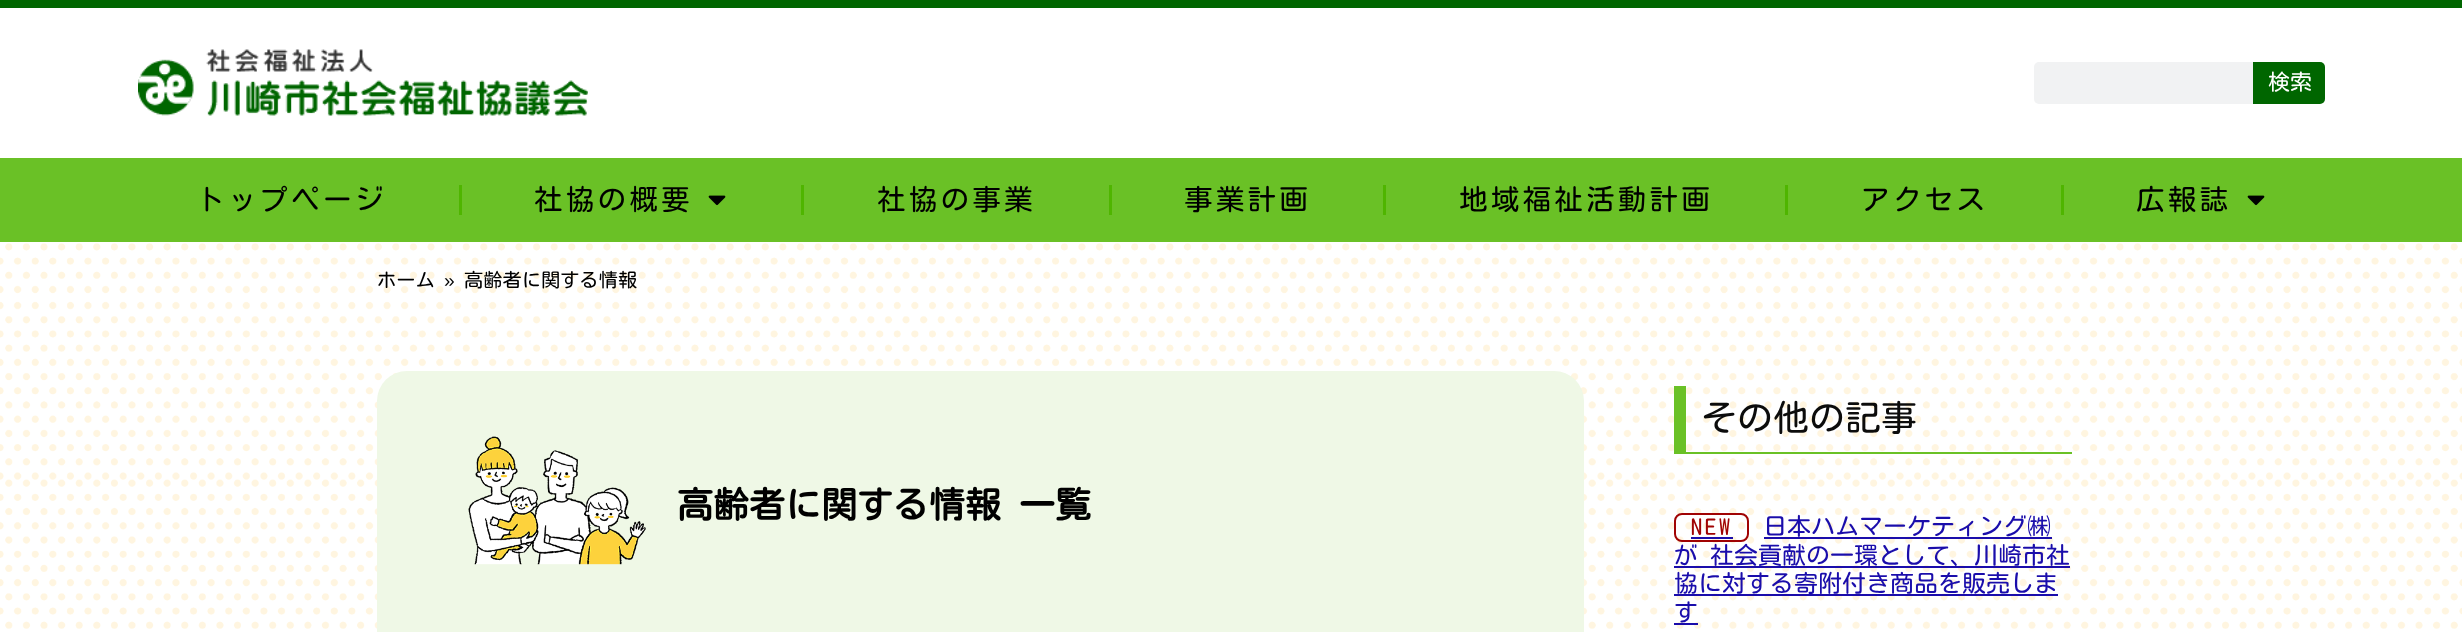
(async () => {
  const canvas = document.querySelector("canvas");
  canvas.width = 2462;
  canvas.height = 632;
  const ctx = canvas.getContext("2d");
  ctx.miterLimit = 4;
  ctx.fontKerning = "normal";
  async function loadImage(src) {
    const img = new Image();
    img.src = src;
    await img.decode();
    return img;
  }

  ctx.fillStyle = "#ffffff";
  ctx.fillRect(0, 0, 2462, 632);
  ctx.fillStyle = "#006600";
  ctx.fillRect(0, 0, 2462, 8);
  ctx.drawImage(await loadImage("img/1.png"), 138, 49, 450, 67);
  ctx.fillStyle = "#f1f2f3";
  ctx.beginPath();
  ctx.roundRect(2034, 62, 291, 42, 5);
  ctx.fill();
  ctx.fillStyle = "#006600";
  ctx.beginPath();
  ctx.roundRect(2253, 62, 72, 42, [0, 5, 5, 0]);
  ctx.fill();
  ctx.fillStyle = "#6ac126";
  ctx.fillRect(0, 158, 2462, 84);
  ctx.fillStyle = "#4fb500";
  ctx.fillRect(459, 185, 3, 30);
  ctx.drawImage(await loadImage("img/2.png"), 708, 195, 18, 11);
  for (const [x, y, w, h, color] of [
    [801, 185, 3, 30, "#4fb500"],
    [1109, 185, 3, 30, "#4fb500"],
    [1383, 185, 3, 30, "#4fb500"],
    [1785, 185, 3, 30, "#4fb500"],
    [2061, 185, 3, 30, "#4fb500"],
  ]) {
    ctx.fillStyle = color;
    ctx.fillRect(x, y, w, h);
  }
  ctx.drawImage(await loadImage("img/2.png"), 2247, 195, 18, 11);
  ctx.drawImage(await loadImage("img/3.png"), 0, 243, 2462, 51);
  ctx.drawImage(await loadImage("img/4.png"), 0, 301, 2462, 328);
  ctx.fillStyle = "#eff8e6";
  ctx.beginPath();
  ctx.roundRect(377, 371, 1207, 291, 30);
  ctx.fill();
  ctx.drawImage(await loadImage("img/5.png"), 468, 436, 178, 129);
  ctx.fillStyle = "#6ac126";
  ctx.fillRect(1674, 452, 398, 2);
  ctx.fillRect(1674, 386, 12, 66);
  ctx.beginPath();
  ctx.roundRect(1675, 514, 73, 27, 7);
  ctx.strokeStyle = "#a00303";
  ctx.lineWidth = 2;
  ctx.stroke();
  for (const [x, y, w, h, color] of [
    [1691, 537, 42, 2, "#1a0dab"],
    [1764, 537, 288, 2, "#1a0dab"],
    [1674, 566, 396, 2, "#1a0dab"],
    [1674, 594, 384, 2, "#1a0dab"],
    [1674, 623, 24, 2, "#1a0dab"],
  ]) {
    ctx.fillStyle = color;
    ctx.fillRect(x, y, w, h);
  }
  ctx.font = "22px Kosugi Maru";
  ctx.fillStyle = "#ffffff";
  ctx.fillText("検索", 2268, 90);
  ctx.letterSpacing = "3px";
  ctx.font = "28.75px Kosugi Maru";
  ctx.fillStyle = "#000000";
  for (const [text, x, y] of [
    ["トップページ", 196, 210],
    ["社協の概要", 534, 210],
    ["社協の事業", 877, 210],
    ["事業計画", 1184, 210],
    ["地域福祉活動計画", 1459, 210],
    ["アクセス", 1861, 210],
    ["広報誌", 2136, 210],
  ]) {
    ctx.fillText(text, x, y);
  }
  ctx.letterSpacing = "0px";
  ctx.font = "19.25px Kosugi Maru";
  ctx.fillText("ホーム", 377, 287);
  ctx.font = "19.25px Liberation Sans";
  ctx.fillText("»", 444, 287);
  ctx.font = "19.25px Kosugi Maru";
  ctx.fillText("高齢者に関する情報", 464, 287);
  ctx.font = "bold 36px Kosugi Maru";
  ctx.fillText("高齢者に関する情報 一覧", 677, 518);
  ctx.font = "36px Kosugi Maru";
  ctx.fillStyle = "#0c0c0c";
  ctx.fillText("その他の記事", 1701, 431);
  ctx.letterSpacing = "3px";
  ctx.font = "22px Kosugi Maru";
  ctx.fillStyle = "#a00303";
  ctx.fillText("NEW", 1691, 535);
  ctx.letterSpacing = "0px";
  ctx.font = "24px Kosugi Maru";
  ctx.fillStyle = "#1a0dab";
  for (const [text, x, y] of [
    ["日本ハムマーケティング㈱", 1763, 535],
    ["が 社会貢献の一環として、川崎市社", 1674, 564],
    ["協に対する寄附付き商品を販売しま", 1674, 592],
    ["す", 1674, 621],
  ]) {
    ctx.fillText(text, x, y);
  }
})();
